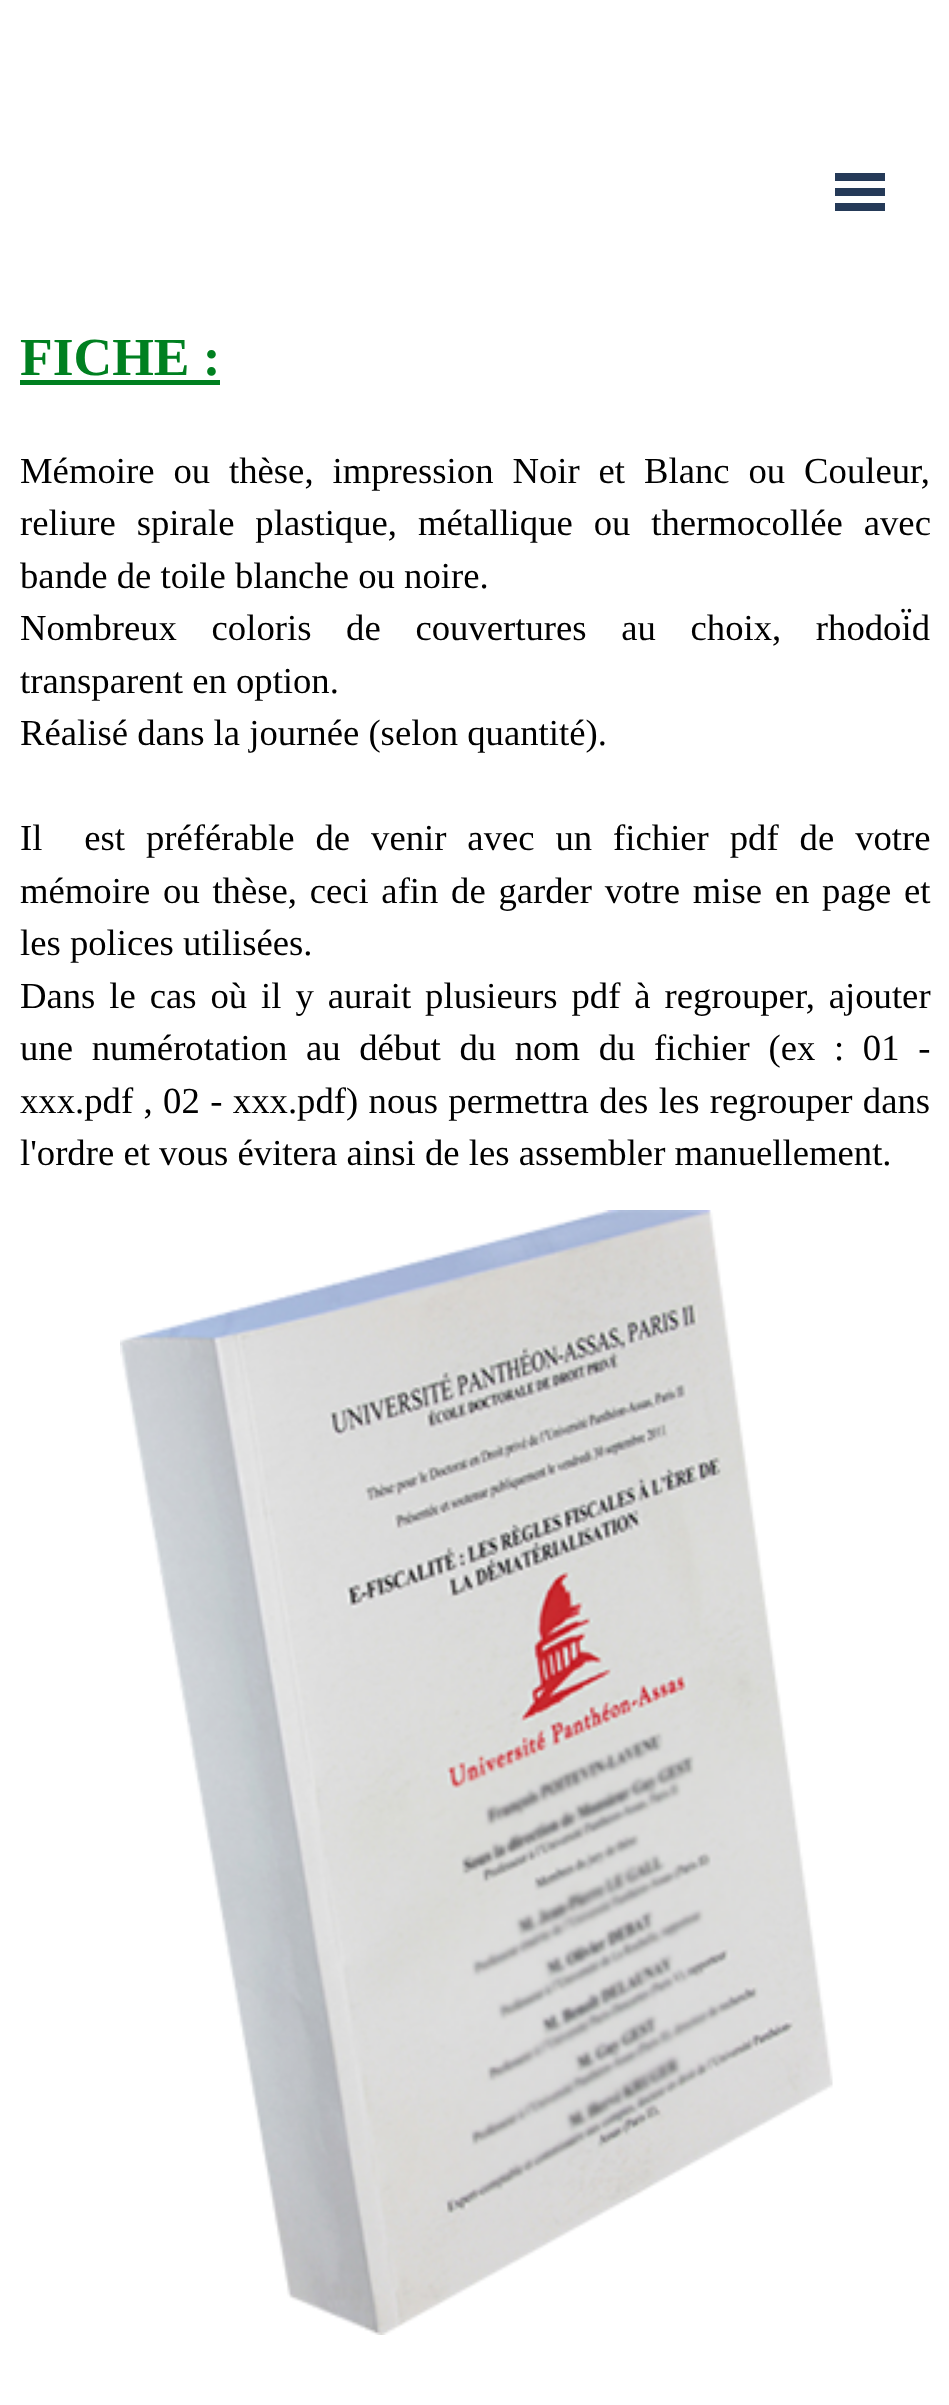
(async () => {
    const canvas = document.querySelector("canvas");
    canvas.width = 949;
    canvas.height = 2405;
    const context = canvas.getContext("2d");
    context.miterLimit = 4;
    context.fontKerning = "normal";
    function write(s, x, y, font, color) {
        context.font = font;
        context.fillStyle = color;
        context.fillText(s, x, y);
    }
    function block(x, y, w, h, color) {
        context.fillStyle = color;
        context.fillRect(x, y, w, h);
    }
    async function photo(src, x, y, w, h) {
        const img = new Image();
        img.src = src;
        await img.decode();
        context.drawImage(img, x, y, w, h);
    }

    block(0, 0, 949, 2405, "rgb(255, 255, 255)");
    block(835, 173, 50, 8, "rgb(37, 58, 88)");
    block(835, 188, 50, 8, "rgb(37, 58, 88)");
    block(835, 203, 50, 8, "rgb(37, 58, 88)");
    write("FICHE :", 20, 375, "bold 53.5px Liberation Serif", "rgb(0, 128, 32)");
    block(20, 380, 200, 5, "rgb(0, 128, 32)");
    context.wordSpacing = "9.75px";
    write("Mémoire ou thèse, impression Noir et Blanc ou Couleur,", 20, 483, "36.7px Liberation Serif", "rgb(0, 0, 0)");
    context.wordSpacing = "11.75px";
    write("reliure spirale plastique, métallique ou thermocollée avec", 20, 535, "36.7px Liberation Serif", "rgb(0, 0, 0)");
    context.wordSpacing = "0px";
    write("bande de toile blanche ou noire.", 20, 588, "36.7px Liberation Serif", "rgb(0, 0, 0)");
    context.wordSpacing = "25.5px";
    write("Nombreux coloris de couvertures au choix, rhodoïd", 20, 640, "36.7px Liberation Serif", "rgb(0, 0, 0)");
    context.wordSpacing = "0px";
    write("transparent en option.", 20, 693, "36.7px Liberation Serif", "rgb(0, 0, 0)");
    write("Réalisé dans la journée (selon quantité).", 20, 745, "36.7px Liberation Serif", "rgb(0, 0, 0)");
    context.wordSpacing = "11.75px";
    write("Il  est préférable de venir avec un fichier pdf de votre", 20, 850, "36.7px Liberation Serif", "rgb(0, 0, 0)");
    context.wordSpacing = "3.5px";
    write("mémoire ou thèse, ceci afin de garder votre mise en page et", 20, 903, "36.7px Liberation Serif", "rgb(0, 0, 0)");
    context.wordSpacing = "0px";
    write("les polices utilisées.", 20, 955, "36.7px Liberation Serif", "rgb(0, 0, 0)");
    context.wordSpacing = "4.75px";
    write("Dans le cas où il y aurait plusieurs pdf à regrouper, ajouter", 20, 1008, "36.7px Liberation Serif", "rgb(0, 0, 0)");
    context.wordSpacing = "9.5px";
    write("une numérotation au début du nom du fichier (ex : 01 -", 20, 1060, "36.7px Liberation Serif", "rgb(0, 0, 0)");
    context.wordSpacing = "1.25px";
    write("xxx.pdf , 02 - xxx.pdf) nous permettra des les regrouper dans", 20, 1113, "36.7px Liberation Serif", "rgb(0, 0, 0)");
    context.wordSpacing = "0px";
    write("l'ordre et vous évitera ainsi de les assembler manuellement.", 20, 1165, "36.7px Liberation Serif", "rgb(0, 0, 0)");
    await photo("media/1.png", 120, 1210, 713, 1125);
})();
